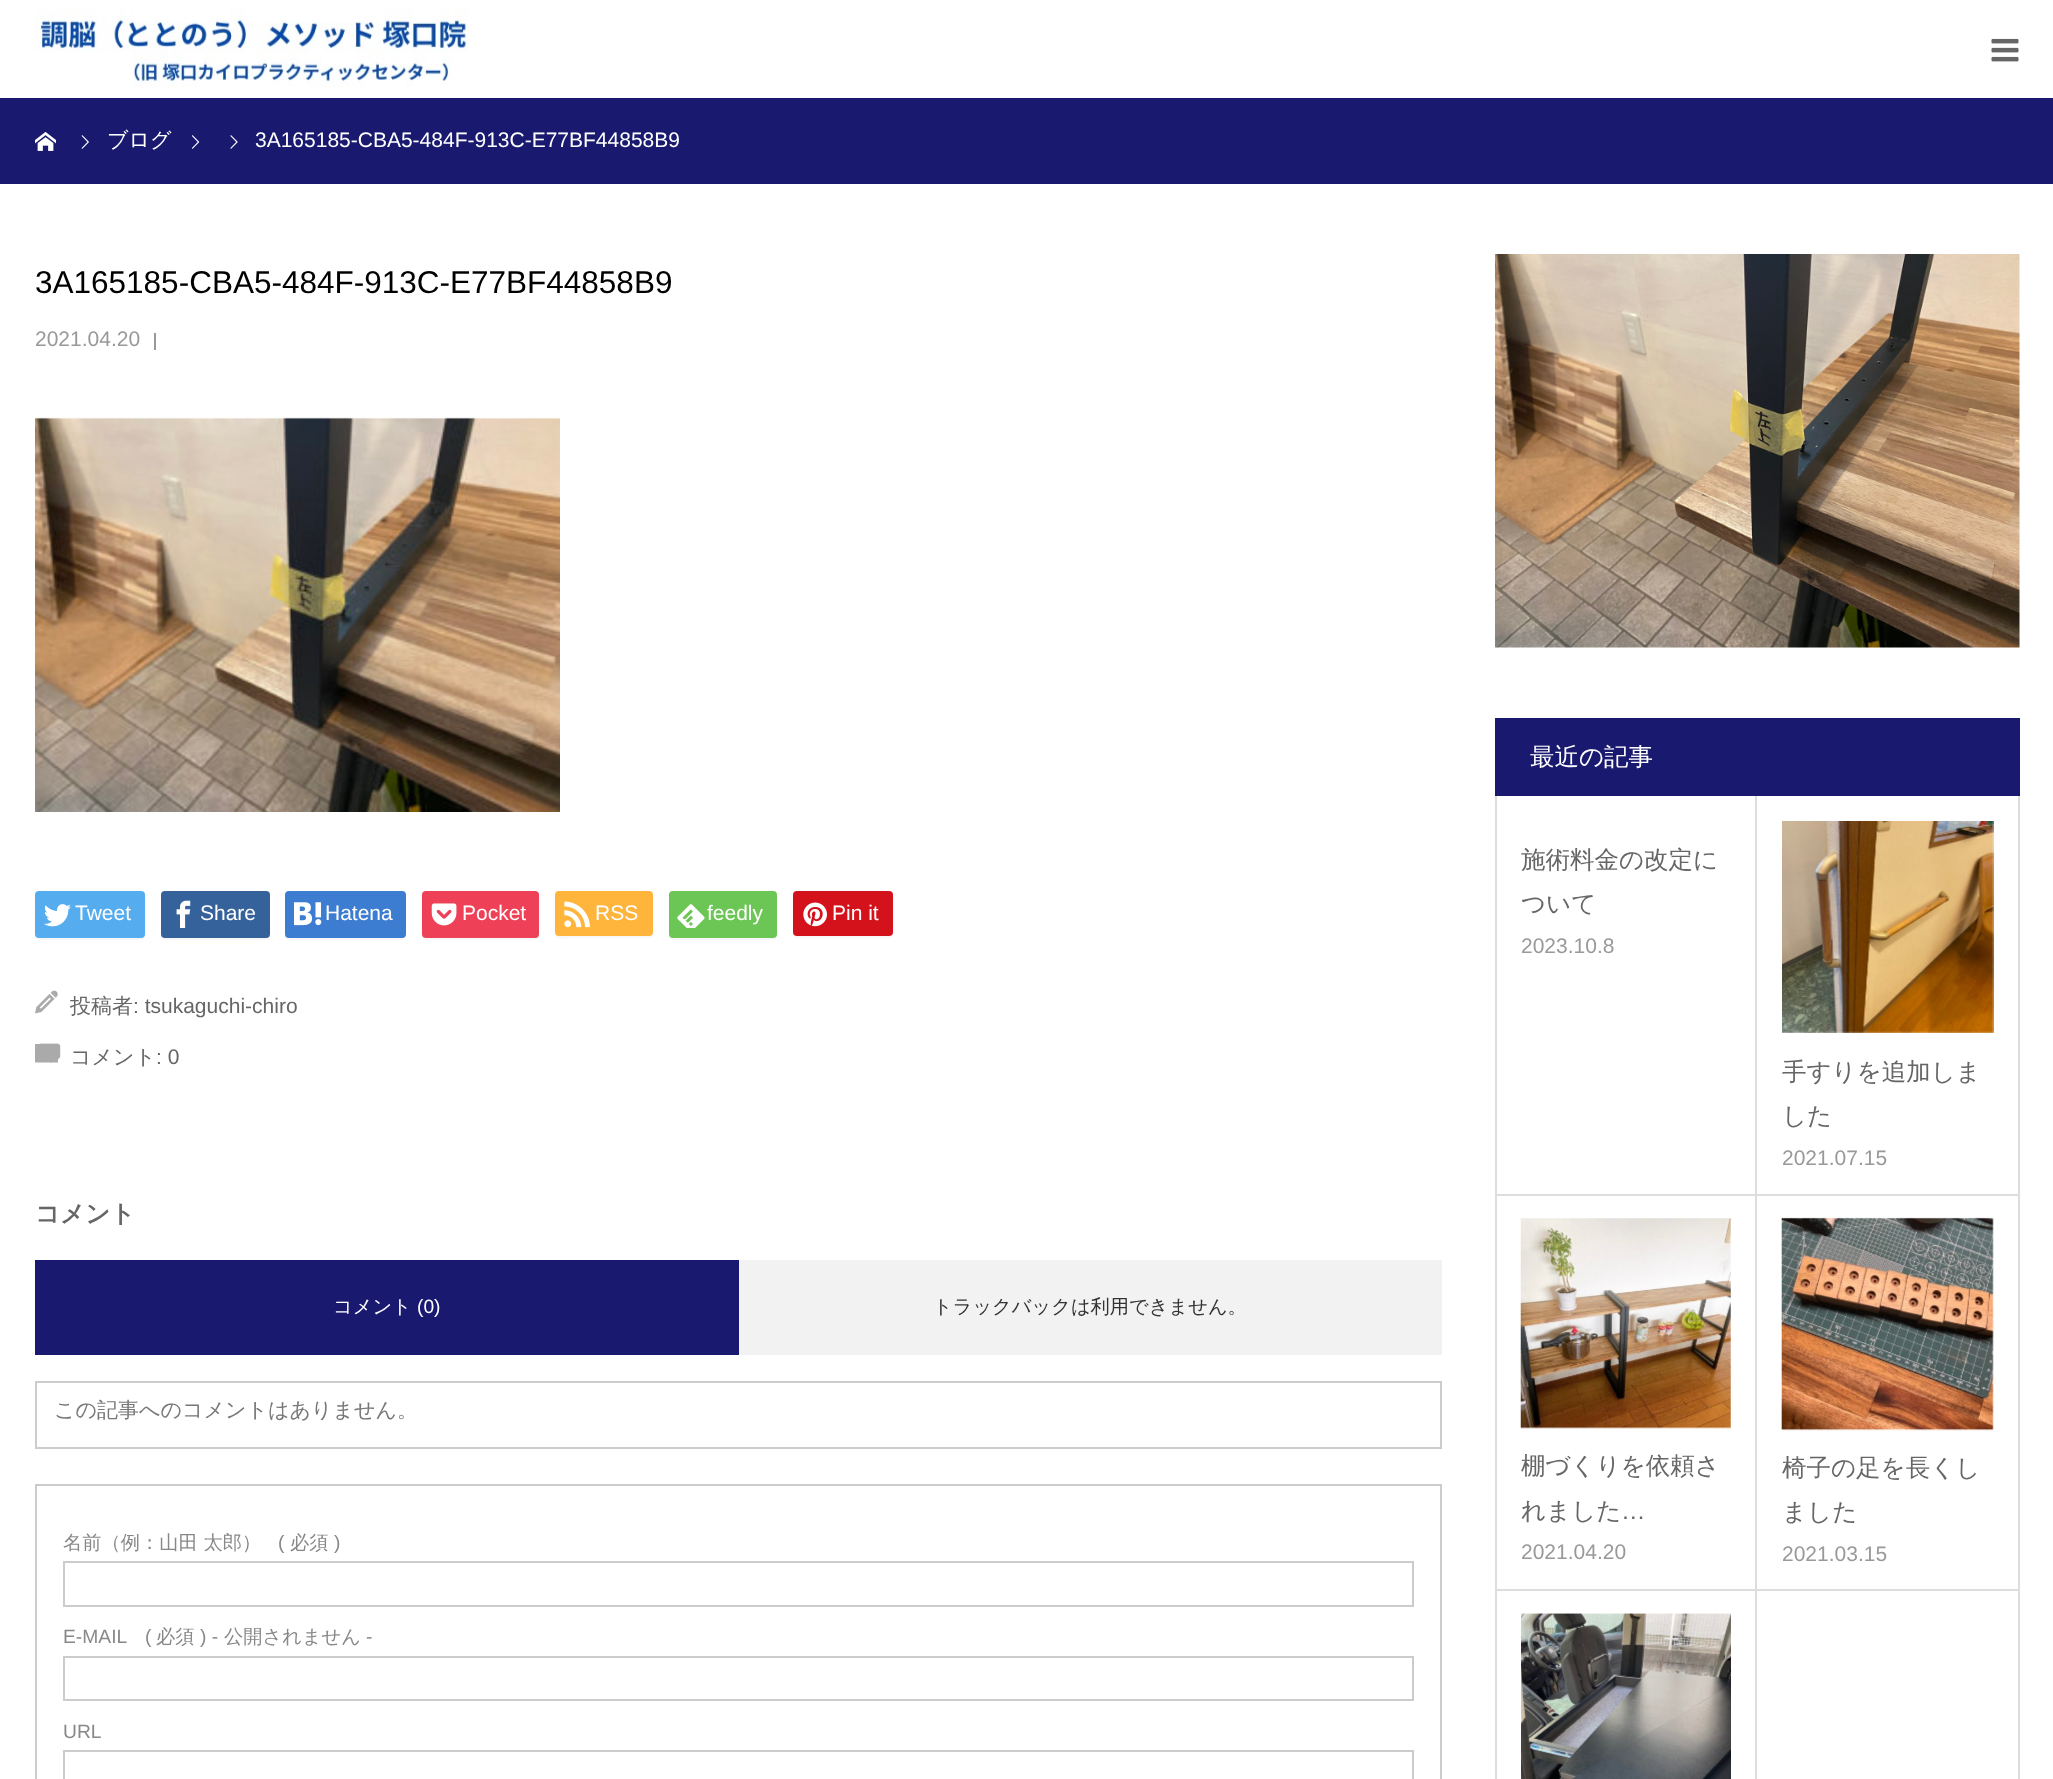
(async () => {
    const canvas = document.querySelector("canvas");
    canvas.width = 2053;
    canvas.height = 1779;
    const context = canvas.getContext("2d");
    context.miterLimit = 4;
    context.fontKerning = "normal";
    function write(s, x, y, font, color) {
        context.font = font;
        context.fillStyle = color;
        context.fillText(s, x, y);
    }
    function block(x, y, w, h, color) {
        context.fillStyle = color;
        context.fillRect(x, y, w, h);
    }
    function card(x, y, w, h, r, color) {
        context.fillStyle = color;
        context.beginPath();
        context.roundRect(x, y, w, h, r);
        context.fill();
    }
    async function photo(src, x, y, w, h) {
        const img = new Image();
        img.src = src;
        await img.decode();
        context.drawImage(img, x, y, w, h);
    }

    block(0, 0, 2053, 1779, "rgb(255, 255, 255)");
    await photo("media/1.png", 35, 9, 434, 78);
    await photo("media/2.png", 1991, 38, 28, 24);
    block(0, 98, 2053, 86, "rgb(25, 25, 112)");
    await photo("media/3.png", 35, 132, 21, 19);
    await photo("media/4.png", 81, 135, 8, 14);
    write("ブログ", 107, 147, "500 21px WenQuanYi Zen Hei", "rgb(255, 255, 255)");
    await photo("media/5.png", 191, 135, 9, 14);
    await photo("media/6.png", 230, 135, 8, 14);
    write("3A165185-CBA5-484F-913C-E77BF44858B9", 255, 147, "21px Liberation Sans", "rgb(255, 255, 255)");
    write("3A165185-CBA5-484F-913C-E77BF44858B9", 35, 293, "31.5px Liberation Sans", "rgb(0, 0, 0)");
    write("2021.04.20", 35, 346, "21px Liberation Sans", "rgb(153, 153, 153)");
    block(154, 333, 2, 17, "rgb(153, 153, 153)");
    await photo("media/7.png", 35, 417, 525, 395);
    context.fillStyle = "rgb(247, 247, 247)";
    context.beginPath();
    context.moveTo(35, 934);
    context.lineTo(35, 936);
    context.bezierCurveTo(35, 938, 37, 940, 39, 940);
    context.lineTo(141, 940);
    context.bezierCurveTo(143, 940, 145, 938, 145, 936);
    context.bezierCurveTo(144, 937, 143, 938, 142, 938);
    context.lineTo(38, 938);
    context.bezierCurveTo(37, 938, 35, 936, 35, 934);
    context.closePath();
    context.fill();
    card(35, 891, 110, 47, 4, "rgb(85, 172, 238)");
    await photo("media/8.png", 44, 904, 27, 23);
    write("Tweet", 75, 920, "21px Liberation Sans", "rgb(255, 255, 255)");
    context.fillStyle = "rgb(247, 247, 247)";
    context.beginPath();
    context.moveTo(161, 934);
    context.lineTo(161, 936);
    context.bezierCurveTo(161, 938, 163, 940, 165, 940);
    context.lineTo(266, 940);
    context.bezierCurveTo(268, 940, 270, 938, 270, 936);
    context.lineTo(270, 897);
    context.lineTo(270, 895);
    context.lineTo(270, 934);
    context.bezierCurveTo(270, 936, 268, 938, 266, 938);
    context.lineTo(164, 938);
    context.bezierCurveTo(163, 938, 161, 936, 161, 934);
    context.closePath();
    context.fill();
    card(161, 891, 109, 47, 4, "rgb(53, 98, 154)");
    await photo("media/9.png", 176, 900, 15, 28);
    write("Share", 200, 920, "21px Liberation Sans", "rgb(255, 255, 255)");
    context.fillStyle = "rgb(247, 247, 247)";
    context.beginPath();
    context.moveTo(285, 896);
    context.lineTo(285, 923);
    context.bezierCurveTo(285, 945, 283, 940, 308, 940);
    context.lineTo(402, 940);
    context.bezierCurveTo(405, 940, 406, 937, 406, 934);
    context.bezierCurveTo(406, 936, 404, 938, 402, 938);
    context.lineTo(289, 938);
    context.bezierCurveTo(287, 938, 285, 936, 285, 934);
    context.closePath();
    context.fill();
    card(285, 891, 121, 47, 4, "rgb(60, 125, 209)");
    await photo("media/10.png", 294, 902, 28, 24);
    write("Hatena", 325, 920, "21px Liberation Sans", "rgb(255, 255, 255)");
    context.fillStyle = "rgb(247, 247, 247)";
    context.beginPath();
    context.moveTo(422, 936);
    context.bezierCurveTo(422, 938, 424, 940, 426, 940);
    context.lineTo(535, 940);
    context.bezierCurveTo(537, 940, 539, 938, 539, 936);
    context.lineTo(539, 934);
    context.bezierCurveTo(539, 936, 537, 938, 536, 938);
    context.lineTo(425, 938);
    context.bezierCurveTo(424, 938, 423, 937, 422, 936);
    context.closePath();
    context.fill();
    card(422, 891, 117, 47, 4, "rgb(238, 64, 86)");
    await photo("media/11.png", 431, 903, 26, 23);
    write("Pocket", 462, 920, "21px Liberation Sans", "rgb(255, 255, 255)");
    context.fillStyle = "rgb(247, 247, 247)";
    context.beginPath();
    context.moveTo(555, 934);
    context.bezierCurveTo(555, 941, 567, 938, 574, 938);
    context.lineTo(634, 938);
    context.bezierCurveTo(655, 938, 653, 941, 653, 922);
    context.lineTo(653, 896);
    context.lineTo(653, 933);
    context.bezierCurveTo(653, 935, 651, 936, 649, 936);
    context.lineTo(558, 936);
    context.bezierCurveTo(557, 936, 556, 935, 555, 934);
    context.closePath();
    context.fill();
    card(555, 891, 98, 45, 4, "rgb(255, 181, 60)");
    await photo("media/12.png", 564, 901, 26, 27);
    write("RSS", 595, 920, "21px Liberation Sans", "rgb(255, 255, 255)");
    context.fillStyle = "rgb(247, 247, 247)";
    context.beginPath();
    context.moveTo(669, 936);
    context.bezierCurveTo(669, 938, 671, 940, 673, 940);
    context.lineTo(773, 940);
    context.bezierCurveTo(775, 940, 777, 938, 777, 936);
    context.lineTo(777, 934);
    context.bezierCurveTo(777, 936, 775, 938, 774, 938);
    context.lineTo(672, 938);
    context.bezierCurveTo(671, 938, 670, 937, 669, 936);
    context.closePath();
    context.fill();
    card(669, 891, 108, 47, 4, "rgb(108, 198, 85)");
    await photo("media/13.png", 677, 904, 28, 24);
    write("feedly", 707, 920, "21px Liberation Sans", "rgb(255, 255, 255)");
    context.fillStyle = "rgb(247, 247, 247)";
    context.beginPath();
    context.moveTo(793, 934);
    context.bezierCurveTo(793, 936, 795, 938, 797, 938);
    context.lineTo(889, 938);
    context.bezierCurveTo(891, 938, 893, 936, 893, 934);
    context.lineTo(893, 897);
    context.lineTo(892, 895);
    context.lineTo(892, 933);
    context.bezierCurveTo(892, 935, 891, 936, 889, 936);
    context.lineTo(796, 936);
    context.bezierCurveTo(795, 936, 794, 935, 793, 934);
    context.closePath();
    context.fill();
    card(793, 891, 100, 45, 4, "rgb(212, 18, 28)");
    await photo("media/14.png", 803, 902, 24, 25);
    write("Pin it", 832, 920, "21px Liberation Sans", "rgb(255, 255, 255)");
    await photo("media/15.png", 35, 990, 23, 24);
    write("投稿者", 70, 1013, "500 21px WenQuanYi Zen Hei", "rgb(102, 102, 102)");
    write(": tsukaguchi-chiro", 133, 1013, "21px Liberation Sans", "rgb(102, 102, 102)");
    context.fillStyle = "rgb(170, 170, 170)";
    context.beginPath();
    context.moveTo(45, 1044);
    context.lineTo(48, 1047);
    context.lineTo(58, 1047);
    context.lineTo(58, 1062.5);
    context.lineTo(35, 1062.5);
    context.lineTo(35, 1044);
    context.closePath();
    context.fill();
    await photo("media/16.png", 39, 1043, 22, 20);
    write("コメント", 70, 1064, "500 21px WenQuanYi Zen Hei", "rgb(102, 102, 102)");
    write(": 0", 156, 1064, "21px Liberation Sans", "rgb(102, 102, 102)");
    write("コメント", 35, 1222, "bold 24.5px WenQuanYi Zen Hei", "rgb(102, 102, 102)");
    block(35, 1260, 704, 95, "rgb(25, 25, 112)");
    write("コメント", 333, 1313, "500 19.25px WenQuanYi Zen Hei", "rgb(255, 255, 255)");
    write("(0)", 417, 1313, "19.25px Liberation Sans", "rgb(255, 255, 255)");
    block(739, 1260, 703, 95, "rgb(242, 242, 242)");
    write("トラックバックは利用できません。", 933, 1313, "500 19.25px WenQuanYi Zen Hei", "rgb(51, 51, 51)");
    context.strokeStyle = "rgb(204, 204, 204)";
    context.lineWidth = 2;
    context.strokeRect(36, 1382, 1405, 66);
    write("この記事へのコメントはありません。", 54, 1417, "500 21px WenQuanYi Zen Hei", "rgb(119, 119, 119)");
    context.strokeRect(36, 1485, 1405, 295);
    write("名前（例：山田 太郎）", 63, 1549, "500 19.25px WenQuanYi Zen Hei", "rgb(136, 136, 136)");
    write("(", 278, 1549, "19.25px Liberation Sans", "rgb(136, 136, 136)");
    write("必須", 290, 1549, "500 19.25px WenQuanYi Zen Hei", "rgb(136, 136, 136)");
    write(")", 334, 1549, "19.25px Liberation Sans", "rgb(136, 136, 136)");
    context.strokeRect(64, 1562, 1349, 44);
    write("E-MAIL", 63, 1643, "19.25px Liberation Sans", "rgb(136, 136, 136)");
    write("(", 145, 1643, "19.25px Liberation Sans", "rgb(136, 136, 136)");
    write("必須", 156, 1643, "500 19.25px WenQuanYi Zen Hei", "rgb(136, 136, 136)");
    write(") -", 200, 1643, "19.25px Liberation Sans", "rgb(136, 136, 136)");
    write("公開されません", 224, 1643, "500 19.25px WenQuanYi Zen Hei", "rgb(136, 136, 136)");
    write("-", 366, 1643, "19.25px Liberation Sans", "rgb(136, 136, 136)");
    context.strokeRect(64, 1657, 1349, 43);
    write("URL", 63, 1738, "19.25px Liberation Sans", "rgb(136, 136, 136)");
    context.strokeRect(64, 1751, 1349, 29);
    await photo("media/17.png", 1495, 254, 525, 394);
    block(1495, 718, 525, 78, "rgb(25, 25, 112)");
    write("最近の記事", 1530, 765, "500 24.5px WenQuanYi Zen Hei", "rgb(255, 255, 255)");
    block(2018, 796, 2, 983, "rgb(221, 221, 221)");
    block(1495, 796, 2, 983, "rgb(221, 221, 221)");
    block(1755, 796, 2, 399, "rgb(221, 221, 221)");
    block(1496, 1194, 522, 2, "rgb(221, 221, 221)");
    write("施術料金の改定に", 1521, 868, "500 24.5px WenQuanYi Zen Hei", "rgb(102, 102, 102)");
    write("ついて", 1521, 912, "500 24.5px WenQuanYi Zen Hei", "rgb(102, 102, 102)");
    write("2023.10.8", 1521, 953, "21px Liberation Sans", "rgb(153, 153, 153)");
    await photo("media/18.png", 1782, 821, 212, 212);
    write("手すりを追加しま", 1782, 1080, "500 24.5px WenQuanYi Zen Hei", "rgb(102, 102, 102)");
    write("した", 1782, 1124, "500 24.5px WenQuanYi Zen Hei", "rgb(102, 102, 102)");
    write("2021.07.15", 1782, 1165, "21px Liberation Sans", "rgb(153, 153, 153)");
    block(1755, 1194, 2, 397, "rgb(221, 221, 221)");
    block(1496, 1589, 522, 2, "rgb(221, 221, 221)");
    await photo("media/19.png", 1520, 1218, 211, 211);
    write("棚づくりを依頼さ", 1521, 1474, "500 24.5px WenQuanYi Zen Hei", "rgb(102, 102, 102)");
    write("れました", 1521, 1519, "500 24.5px WenQuanYi Zen Hei", "rgb(102, 102, 102)");
    write("…", 1621, 1519, "24.5px Liberation Sans", "rgb(102, 102, 102)");
    write("2021.04.20", 1521, 1559, "21px Liberation Sans", "rgb(153, 153, 153)");
    await photo("media/20.png", 1781, 1217, 213, 214);
    write("椅子の足を長くし", 1782, 1476, "500 24.5px WenQuanYi Zen Hei", "rgb(102, 102, 102)");
    write("ました", 1782, 1520, "500 24.5px WenQuanYi Zen Hei", "rgb(102, 102, 102)");
    write("2021.03.15", 1782, 1561, "21px Liberation Sans", "rgb(153, 153, 153)");
    block(1755, 1589, 2, 190, "rgb(221, 221, 221)");
    await photo("media/21.png", 1521, 1613, 210, 166);
})();
